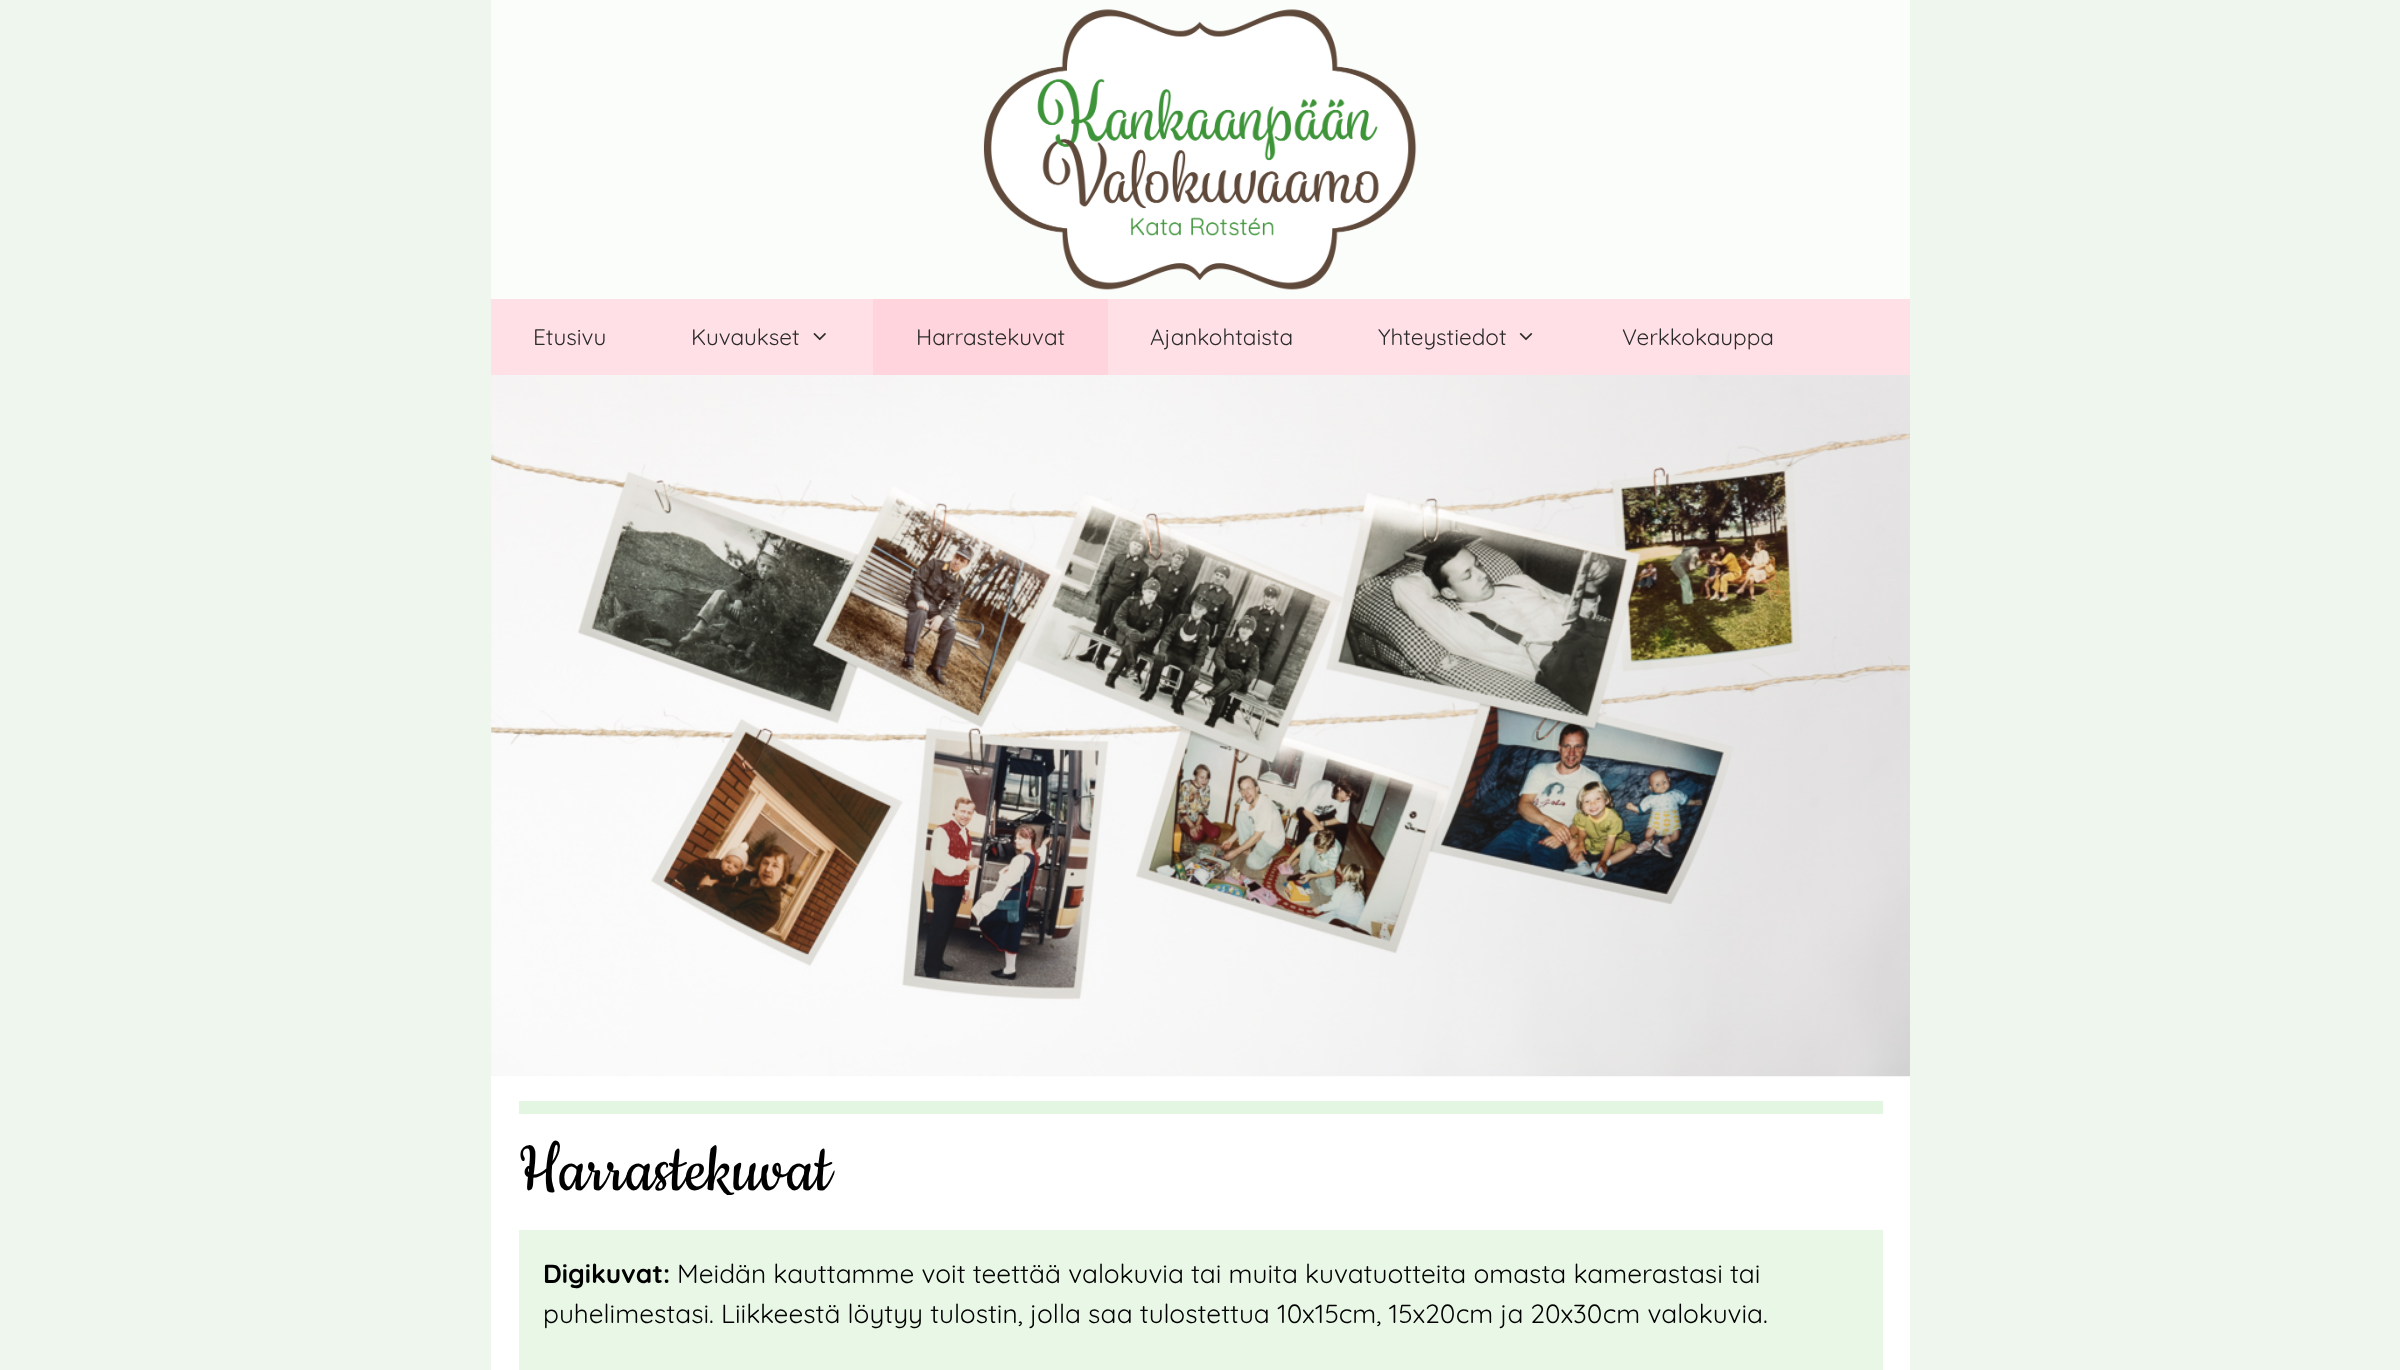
(async () => {
    const canvas = document.querySelector("canvas");
    canvas.width = 2400;
    canvas.height = 1370;
    const context = canvas.getContext("2d");
    context.miterLimit = 4;
    context.fontKerning = "normal";
    function write(s, x, y, font, color) {
        context.font = font;
        context.fillStyle = color;
        context.fillText(s, x, y);
    }
    function block(x, y, w, h, color) {
        context.fillStyle = color;
        context.fillRect(x, y, w, h);
    }
    async function photo(src, x, y, w, h) {
        const img = new Image();
        img.src = src;
        await img.decode();
        context.drawImage(img, x, y, w, h);
    }

    block(0, 0, 2400, 1370, "rgb(238, 246, 238)");
    block(491, 0, 1419, 299, "rgb(251, 253, 251)");
    await photo("media/1.png", 983, 9, 434, 281);
    block(491, 299, 1419, 76, "rgb(255, 224, 230)");
    write("Etusivu", 533, 345, "22.5px Quicksand", "rgb(43, 43, 43)");
    write("Kuvaukset", 691, 345, "22.5px Quicksand", "rgb(43, 43, 43)");
    await photo("media/2.png", 813, 333, 13, 8);
    block(873, 299, 235, 76, "rgb(255, 212, 221)");
    write("Harrastekuvat", 916, 345, "22.5px Quicksand", "rgb(43, 43, 43)");
    write("Ajankohtaista", 1150, 345, "22.5px Quicksand", "rgb(43, 43, 43)");
    write("Yhteystiedot", 1378, 345, "22.5px Quicksand", "rgb(43, 43, 43)");
    await photo("media/3.png", 1519, 333, 14, 8);
    write("Verkkokauppa", 1622, 345, "22.5px Quicksand", "rgb(43, 43, 43)");
    block(491, 1076, 1419, 294, "rgb(255, 255, 255)");
    await photo("media/4.png", 491, 375, 1419, 702);
    block(519, 1101, 1364, 13, "rgb(227, 246, 225)");
    write("Harrastekuvat", 518, 1190, "75px Cookie", "rgb(0, 0, 0)");
    block(519, 1230, 1364, 140, "rgb(232, 247, 230)");
    write("Digikuvat:", 543, 1283, "bold 26.25px Quicksand", "rgb(0, 0, 0)");
    write("Meidän kauttamme voit teettää valokuvia tai muita kuvatuotteita omasta kamerastasi tai", 677, 1283, "26.25px Quicksand", "rgb(0, 0, 0)");
    write("puhelimestasi. Liikkeestä löytyy tulostin, jolla saa tulostettua 10x15cm, 15x20cm ja 20x30cm valokuvia.", 543, 1323, "26.25px Quicksand", "rgb(0, 0, 0)");
})();
